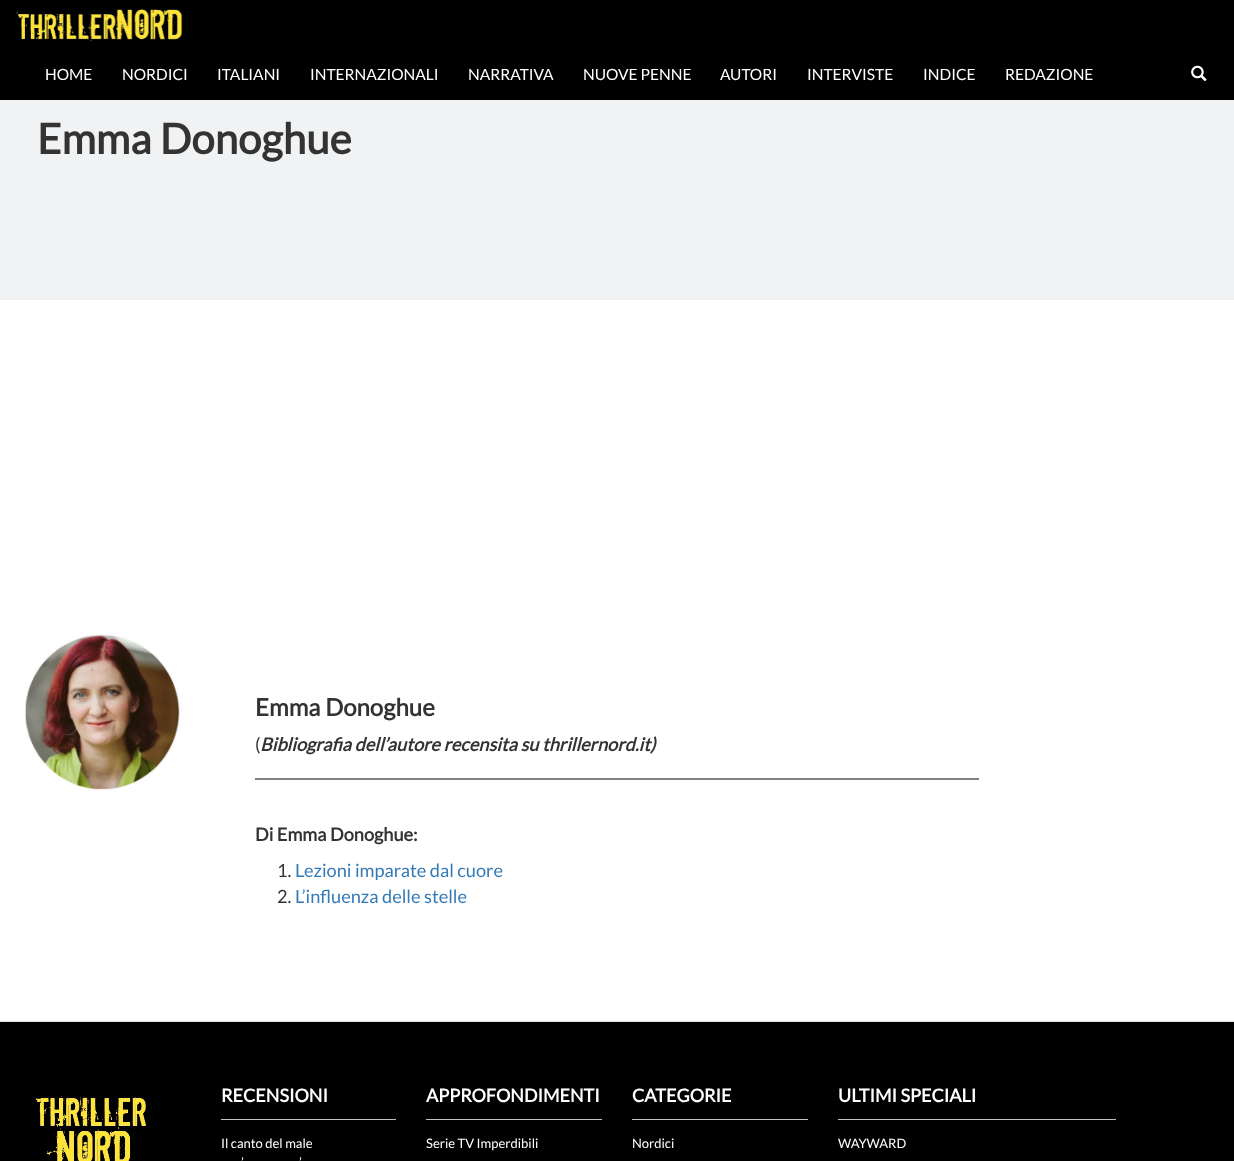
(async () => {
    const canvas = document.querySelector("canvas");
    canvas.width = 1234;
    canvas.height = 1161;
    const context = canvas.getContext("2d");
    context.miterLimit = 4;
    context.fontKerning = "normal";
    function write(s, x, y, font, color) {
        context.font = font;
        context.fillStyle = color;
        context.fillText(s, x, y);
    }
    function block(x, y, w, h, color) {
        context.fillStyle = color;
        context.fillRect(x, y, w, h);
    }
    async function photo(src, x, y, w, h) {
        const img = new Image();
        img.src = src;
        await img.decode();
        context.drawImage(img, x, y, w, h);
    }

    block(0, 0, 1234, 1161, "rgb(255, 255, 255)");
    block(0, 0, 1234, 100, "rgb(0, 0, 0)");
    await photo("media/1.png", 16, 9, 167, 33);
    write("HOME", 45, 80, "15.5px Lato", "rgb(255, 255, 255)");
    write("NORDICI", 122, 80, "15.5px Lato", "rgb(255, 255, 255)");
    write("ITALIANI", 217, 80, "15.5px Lato", "rgb(255, 255, 255)");
    write("INTERNAZIONALI", 310, 80, "15.5px Lato", "rgb(255, 255, 255)");
    write("NARRATIVA", 468, 80, "15.5px Lato", "rgb(255, 255, 255)");
    write("NUOVE PENNE", 583, 80, "15.5px Lato", "rgb(255, 255, 255)");
    write("AUTORI", 720, 80, "15.5px Lato", "rgb(255, 255, 255)");
    write("INTERVISTE", 807, 80, "15.5px Lato", "rgb(255, 255, 255)");
    write("INDICE", 923, 80, "15.5px Lato", "rgb(255, 255, 255)");
    write("REDAZIONE", 1005, 80, "15.5px Lato", "rgb(255, 255, 255)");
    await photo("media/2.png", 1191, 65, 16, 16);
    block(0, 100, 1234, 200, "rgb(240, 242, 243)");
    write("Emma Donoghue", 37, 154, "bold 42px Lato", "rgb(51, 51, 51)");
    await photo("media/3.png", 25, 634, 156, 157);
    write("Emma Donoghue", 255, 716, "bold 24px Lato", "rgb(51, 51, 51)");
    write("(", 255, 751, "18.2px Lato", "rgb(51, 51, 51)");
    write("Bibliografia dell’autore recensita su thrillernord.it)", 260, 751, "italic bold 18.2px Lato", "rgb(51, 51, 51)");
    block(255, 778, 724, 2, "rgb(128, 128, 128)");
    write("Di Emma Donoghue:", 255, 841, "bold 18.2px Lato", "rgb(51, 51, 51)");
    write("1.", 277, 877, "18.2px Lato", "rgb(51, 51, 51)");
    write("Lezioni imparate dal cuore", 295, 877, "18.2px Lato", "rgb(51, 122, 183)");
    write("2.", 277, 903, "18.2px Lato", "rgb(51, 51, 51)");
    write("L’influenza delle stelle", 295, 903, "18.2px Lato", "rgb(51, 122, 183)");
    block(0, 1022, 1234, 139, "rgb(0, 0, 0)");
    block(0, 1021, 1234, 1, "rgb(221, 221, 221)");
    await photo("media/4.png", 35, 1095, 118, 66);
    block(221, 1119, 175, 1, "rgb(186, 193, 200)");
    write("RECENSIONI", 221, 1102, "bold 18px Lato", "rgb(255, 255, 255)");
    write("Il canto del male", 221, 1148, "13px Lato", "rgb(255, 255, 255)");
    write("’", 241, 1167, "13px Lato", "rgb(255, 255, 255)");
    write("’", 299, 1167, "13px Lato", "rgb(255, 255, 255)");
    block(426, 1119, 176, 1, "rgb(186, 193, 200)");
    write("APPROFONDIMENTI", 426, 1102, "bold 18px Lato", "rgb(255, 255, 255)");
    write("Serie TV Imperdibili", 426, 1148, "13px Lato", "rgb(255, 255, 255)");
    block(632, 1119, 176, 1, "rgb(186, 193, 200)");
    write("CATEGORIE", 632, 1102, "bold 18px Lato", "rgb(255, 255, 255)");
    write("Nordici", 632, 1148, "13px Lato", "rgb(255, 255, 255)");
    block(838, 1119, 278, 1, "rgb(186, 193, 200)");
    write("ULTIMI SPECIALI", 838, 1102, "bold 18px Lato", "rgb(255, 255, 255)");
    write("WAYWARD", 838, 1148, "13px Lato", "rgb(255, 255, 255)");
})();
